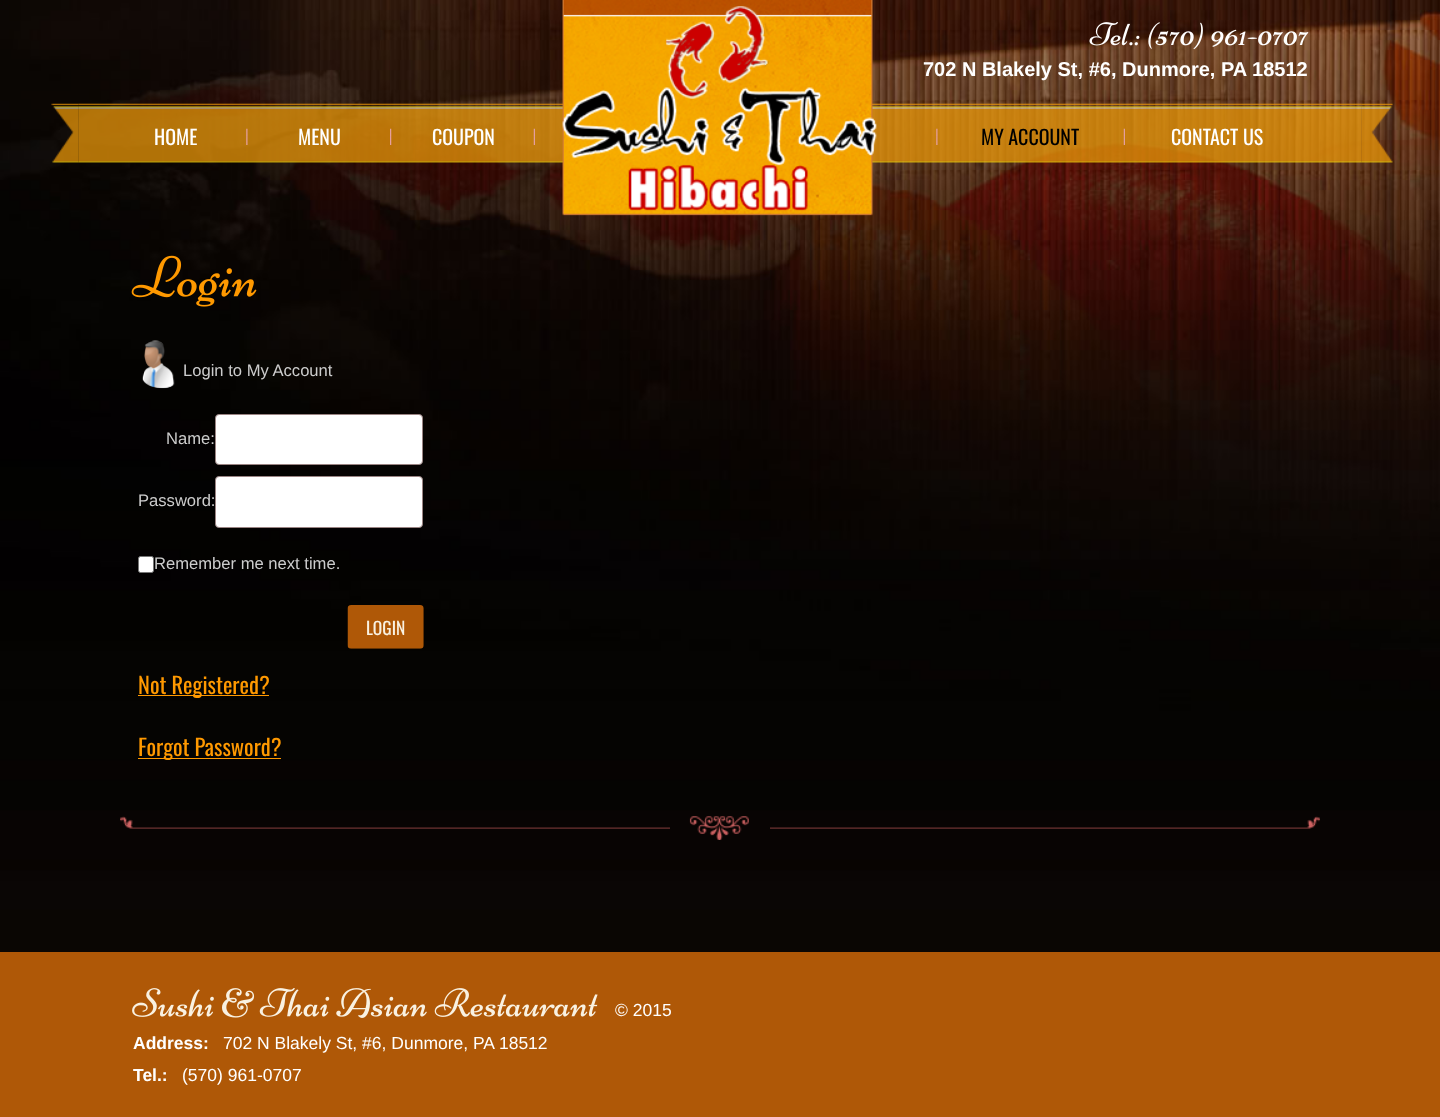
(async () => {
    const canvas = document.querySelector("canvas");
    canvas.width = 1440;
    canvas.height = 1117;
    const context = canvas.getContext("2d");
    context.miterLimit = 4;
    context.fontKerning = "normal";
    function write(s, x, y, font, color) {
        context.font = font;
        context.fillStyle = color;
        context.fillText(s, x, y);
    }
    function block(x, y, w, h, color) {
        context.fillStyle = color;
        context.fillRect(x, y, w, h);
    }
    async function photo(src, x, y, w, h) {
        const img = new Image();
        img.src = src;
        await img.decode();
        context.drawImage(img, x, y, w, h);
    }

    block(0, 0, 1440, 1117, "rgb(255, 255, 255)");
    await photo("media/1.png", 0, 0, 1440, 952);
    await photo("media/2.png", 1089, 22, 220, 28);
    write("702 N Blakely St, #6, Dunmore, PA 18512", 923, 76, "bold 20px Liberation Sans", "rgb(255, 255, 255)");
    await photo("media/3.png", 78, 103, 485, 60);
    await photo("media/4.png", 51, 103, 28, 60);
    await photo("media/5.png", 246, 128, 2, 17);
    write("HOME", 154, 145, "20px Oswald", "rgb(255, 255, 255)");
    await photo("media/6.png", 390, 128, 2, 17);
    write("MENU", 298, 145, "20px Oswald", "rgb(255, 255, 255)");
    await photo("media/7.png", 533, 128, 2, 17);
    write("COUPON", 432, 145, "20px Oswald", "rgb(255, 255, 255)");
    await photo("media/9.png", 872, 103, 490, 60);
    await photo("media/8.png", 562, 0, 315, 216);
    await photo("media/10.png", 936, 128, 2, 17);
    write("MY ACCOUNT", 981, 145, "20px Oswald", "rgb(0, 0, 0)");
    await photo("media/11.png", 1123, 128, 2, 17);
    write("CONTACT US", 1171, 145, "20px Oswald", "rgb(255, 255, 255)");
    await photo("media/12.png", 1361, 103, 32, 60);
    await photo("media/13.png", 131, 255, 126, 52);
    await photo("media/14.png", 142, 340, 33, 49);
    write("Login to My Account", 183, 376, "16.6px Liberation Sans", "rgb(204, 204, 204)");
    write("Name:", 166, 444, "16.6px Liberation Sans", "rgb(204, 204, 204)");
    context.fillStyle = "rgb(255, 255, 255)";
    context.beginPath();
    context.roundRect(215.5, 414.5, 207, 50, 3.5);
    context.fill();
    context.strokeStyle = "rgb(153, 131, 130)";
    context.stroke();
    write("Password:", 138, 506, "16.6px Liberation Sans", "rgb(204, 204, 204)");
    context.fillStyle = "rgb(255, 255, 255)";
    context.beginPath();
    context.roundRect(215.5, 476.5, 207, 51, 3.5);
    context.fill();
    context.stroke();
    context.beginPath();
    context.roundRect(138.5, 556.5, 15, 16, 2);
    context.fill();
    context.strokeStyle = "rgb(118, 118, 118)";
    context.stroke();
    write("Remember me next time.", 154, 569, "16.6px Liberation Sans", "rgb(204, 204, 204)");
    await photo("media/15.png", 347, 605, 77, 44);
    write("LOGIN", 366, 635, "17.5px Oswald", "rgb(249, 241, 225)");
    block(138, 695, 131, 1, "rgb(255, 153, 0)");
    write("Not Registered?", 138, 694, "22.5px Oswald", "rgb(255, 153, 0)");
    block(138, 758, 143, 1, "rgb(255, 153, 0)");
    write("Forgot Password?", 138, 756, "22.5px Oswald", "rgb(255, 153, 0)");
    await photo("media/16.png", 120, 816, 550, 13);
    await photo("media/17.png", 689, 816, 60, 24);
    await photo("media/18.png", 770, 816, 550, 13);
    block(0, 952, 1440, 165, "rgb(175, 88, 7)");
    await photo("media/19.png", 132, 988, 466, 30);
    write("© 2015", 615, 1016, "17.5px Liberation Sans", "rgb(255, 255, 255)");
    write("Address:", 133, 1049, "bold 17.5px Liberation Sans", "rgb(255, 255, 255)");
    write("702 N Blakely St, #6, Dunmore, PA 18512", 223, 1049, "17.5px Liberation Sans", "rgb(255, 255, 255)");
    write("Tel.:", 133, 1081, "bold 17.5px Liberation Sans", "rgb(255, 255, 255)");
    write("(570) 961-0707", 182, 1081, "17.5px Liberation Sans", "rgb(255, 255, 255)");
})();
